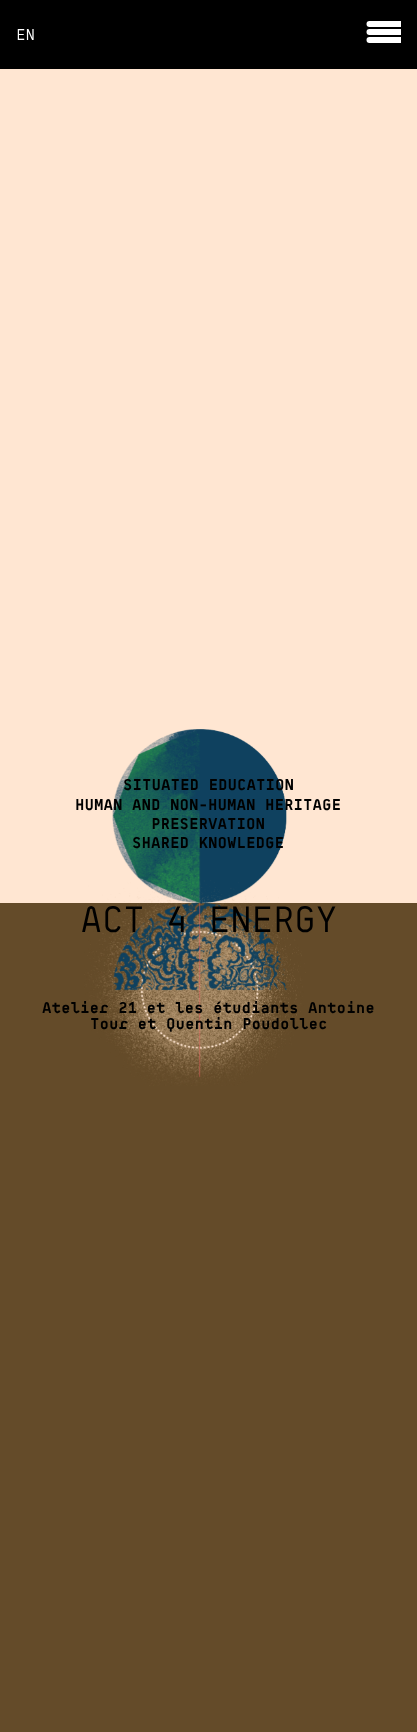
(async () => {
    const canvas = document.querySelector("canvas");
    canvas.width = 417;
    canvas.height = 1732;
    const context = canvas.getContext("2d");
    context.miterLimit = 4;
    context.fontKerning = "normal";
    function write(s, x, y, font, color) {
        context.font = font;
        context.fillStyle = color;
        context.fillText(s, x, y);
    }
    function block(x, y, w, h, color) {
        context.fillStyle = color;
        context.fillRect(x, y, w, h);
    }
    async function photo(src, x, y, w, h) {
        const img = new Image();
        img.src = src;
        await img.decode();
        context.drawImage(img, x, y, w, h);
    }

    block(0, 0, 417, 1732, "rgb(0, 0, 0)");
    write("EN", 16, 40, "16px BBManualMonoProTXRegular", "rgb(255, 255, 255)");
    context.save();
    context.beginPath();
    context.rect(362, 16, 39, 32);
    context.clip();
    context.beginPath();
    context.moveTo(369.5, 24);
    context.lineTo(404.5, 24);
    context.moveTo(369.5, 32);
    context.lineTo(404.5, 32);
    context.moveTo(369.5, 40);
    context.lineTo(404.5, 40);
    context.strokeStyle = "rgb(255, 255, 255)";
    context.lineWidth = 6;
    context.lineCap = "round";
    context.lineJoin = "round";
    context.stroke();
    context.restore();
    block(0, 69, 417, 834, "rgb(255, 230, 210)");
    block(0, 903, 417, 829, "rgb(100, 75, 41)");
    await photo("media/1.png", 84, 729, 222, 357);
    write("SITUATED EDUCATION", 123, 790, "bold 16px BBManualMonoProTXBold", "rgb(0, 0, 0)");
    write("HUMAN AND NON-HUMAN HERITAGE", 75, 810, "bold 16px BBManualMonoProTXBold", "rgb(0, 0, 0)");
    write("PRESERVATION", 151, 829, "bold 16px BBManualMonoProTXBold", "rgb(0, 0, 0)");
    write("SHARED KNOWLEDGE", 132, 848, "bold 16px BBManualMonoProTXBold", "rgb(0, 0, 0)");
    write("ACT 4 ENERGY", 80, 932, "bold 36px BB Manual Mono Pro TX", "rgb(0, 0, 0)");
    write("Atelier 21 et les étudiants Antoine", 42, 1013, "bold 16px BBManualMonoProTXBold", "rgb(0, 0, 0)");
    write("Tour et Quentin Poudollec", 90, 1029, "bold 16px BBManualMonoProTXBold", "rgb(0, 0, 0)");
})();
